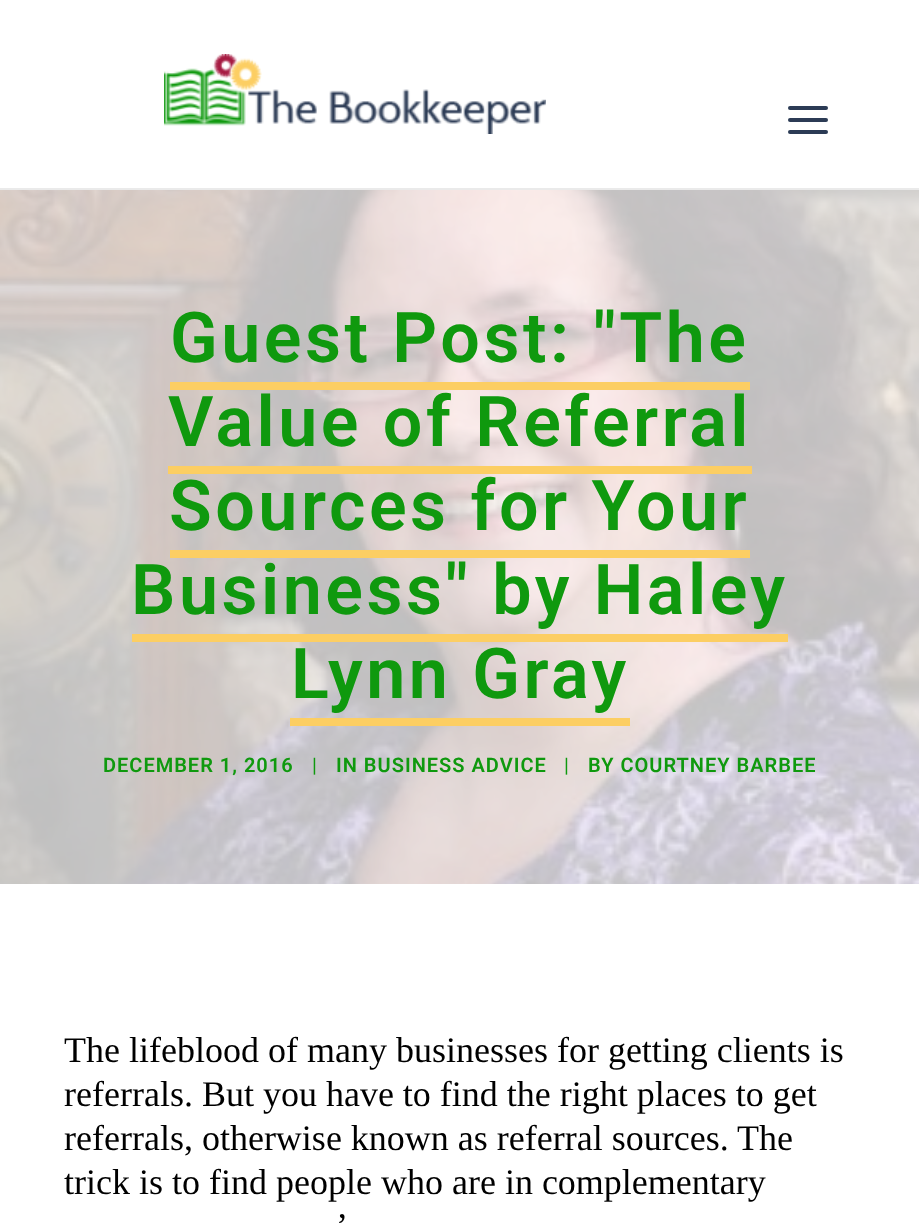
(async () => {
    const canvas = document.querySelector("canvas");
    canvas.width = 919;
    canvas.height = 1223;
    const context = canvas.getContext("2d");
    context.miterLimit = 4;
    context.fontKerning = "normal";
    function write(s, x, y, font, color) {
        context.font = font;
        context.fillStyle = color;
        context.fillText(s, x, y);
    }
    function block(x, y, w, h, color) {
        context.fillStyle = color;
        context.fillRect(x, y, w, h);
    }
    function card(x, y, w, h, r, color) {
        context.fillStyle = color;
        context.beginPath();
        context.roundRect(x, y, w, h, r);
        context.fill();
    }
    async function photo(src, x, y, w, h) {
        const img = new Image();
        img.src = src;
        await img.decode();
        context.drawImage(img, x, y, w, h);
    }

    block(0, 0, 919, 1223, "rgb(255, 255, 255)");
    block(0, 188, 919, 2, "rgb(234, 234, 234)");
    await photo("media/1.png", 164, 54, 382, 80);
    card(788, 118, 40, 4, 2, "rgb(44, 59, 85)");
    card(788, 106, 40, 4, 2, "rgb(44, 59, 85)");
    card(788, 130, 40, 4, 2, "rgb(44, 59, 85)");
    await photo("media/2.png", 0, 190, 919, 694);
    context.letterSpacing = "3.5px";
    write("Guest Post: \"The", 170, 362, "600 70px Roboto", "rgb(15, 153, 14)");
    write("Value of Referral", 168, 446, "600 70px Roboto", "rgb(15, 153, 14)");
    block(170, 382, 580, 8, "rgb(252, 206, 99)");
    write("Sources for Your", 169, 530, "600 70px Roboto", "rgb(15, 153, 14)");
    block(168, 466, 584, 8, "rgb(252, 206, 99)");
    write("Business\" by Haley", 131, 614, "600 70px Roboto", "rgb(15, 153, 14)");
    block(170, 550, 580, 8, "rgb(252, 206, 99)");
    write("Lynn Gray", 291, 698, "600 70px Roboto", "rgb(15, 153, 14)");
    block(132, 634, 656, 8, "rgb(252, 206, 99)");
    block(290, 718, 340, 8, "rgb(252, 206, 99)");
    context.letterSpacing = "1px";
    write("DECEMBER 1, 2016", 103, 772, "600 20px Roboto", "rgb(15, 153, 14)");
    write("|", 312, 772, "20px Roboto", "rgb(15, 153, 14)");
    write("IN BUSINESS ADVICE", 336, 772, "600 20px Roboto", "rgb(15, 153, 14)");
    write("|", 564, 772, "20px Roboto", "rgb(15, 153, 14)");
    write("BY COURTNEY BARBEE", 588, 772, "600 20px Roboto", "rgb(15, 153, 14)");
    context.letterSpacing = "0px";
    write("The lifeblood of many businesses for getting clients is", 64, 1062, "36px Liberation Serif", "rgb(0, 0, 0)");
    write("referrals. But you have to find the right places to get", 64, 1106, "36px Liberation Serif", "rgb(0, 0, 0)");
    write("referrals, otherwise known as referral sources. The", 64, 1150, "36px Liberation Serif", "rgb(0, 0, 0)");
    write("trick is to find people who are in complementary", 64, 1194, "36px Liberation Serif", "rgb(0, 0, 0)");
    write("’", 336, 1238, "36px Liberation Serif", "rgb(0, 0, 0)");
})();
